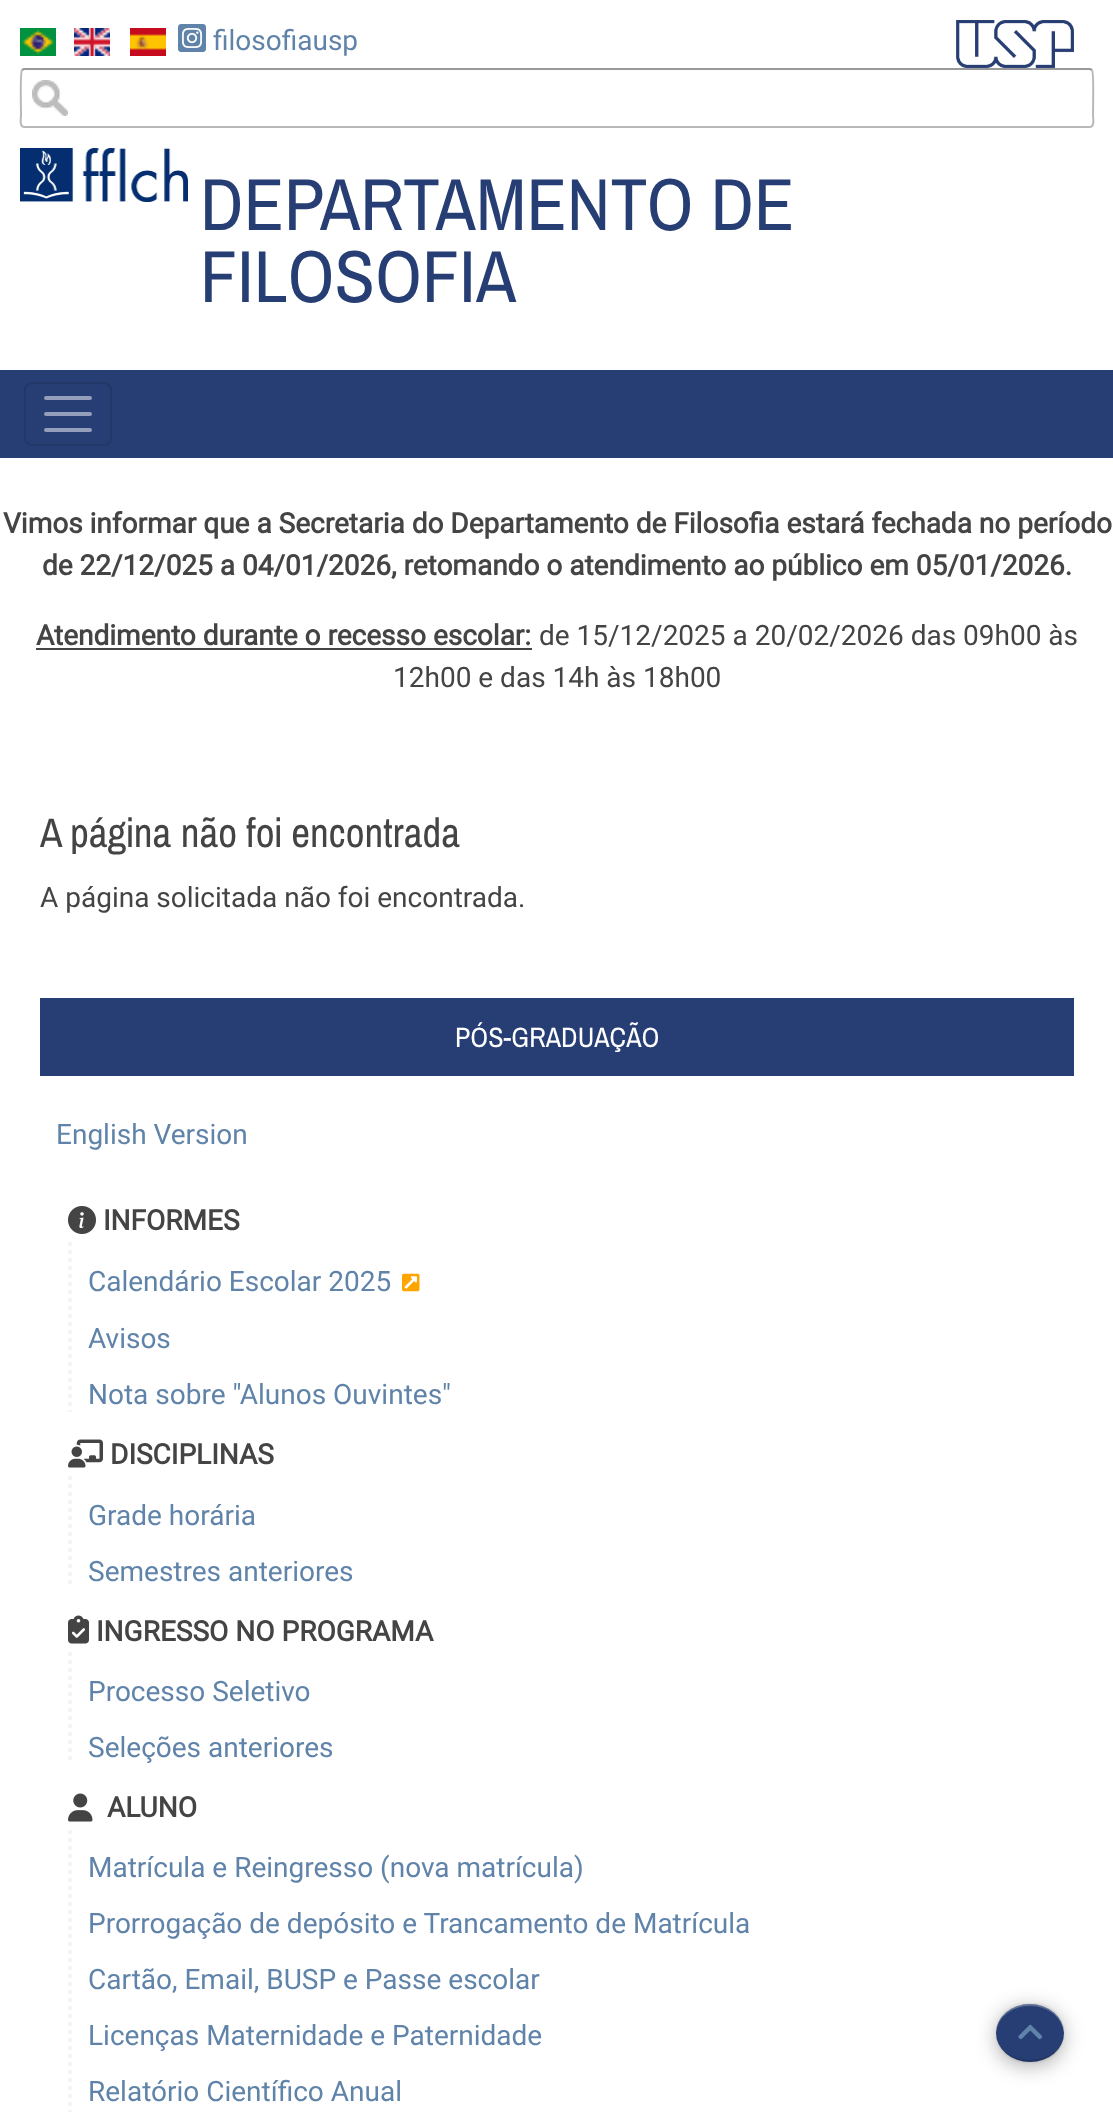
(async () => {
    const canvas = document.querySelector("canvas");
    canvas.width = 1113;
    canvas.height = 2112;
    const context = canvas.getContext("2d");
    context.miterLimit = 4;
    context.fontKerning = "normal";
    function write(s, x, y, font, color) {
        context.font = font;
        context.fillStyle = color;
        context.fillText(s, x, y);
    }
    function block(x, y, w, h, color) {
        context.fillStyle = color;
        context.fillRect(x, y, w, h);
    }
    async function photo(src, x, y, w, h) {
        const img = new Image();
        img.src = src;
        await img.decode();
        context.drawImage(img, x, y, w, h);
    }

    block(0, 0, 1113, 2112, "rgb(255, 255, 255)");
    await photo("media/1.png", 20, 28, 36, 28);
    await photo("media/2.png", 74, 28, 36, 28);
    await photo("media/3.png", 130, 28, 36, 28);
    await photo("media/4.png", 178, 24, 28, 28);
    write("filosofiausp", 213, 50, "28px Roboto", "rgb(96, 131, 169)");
    await photo("media/5.png", 956, 20, 118, 48);
    await photo("media/6.png", 32, 80, 36, 36);
    context.beginPath();
    context.moveTo(22, 70);
    context.lineTo(24, 69);
    context.lineTo(1090, 69);
    context.lineTo(1092, 70);
    context.strokeStyle = "rgb(153, 153, 153)";
    context.lineWidth = 2;
    context.stroke();
    context.beginPath();
    context.moveTo(1092, 70);
    context.bezierCurveTo(1094, 72, 1093, 109.5, 1093, 115.5);
    context.bezierCurveTo(1093, 116.5, 1095, 127, 1090, 127);
    context.lineTo(24, 127);
    context.bezierCurveTo(19, 127, 21, 116.5, 21, 115.5);
    context.bezierCurveTo(21, 109.5, 20, 72, 22, 70);
    context.strokeStyle = "rgb(184, 184, 184)";
    context.stroke();
    await photo("media/7.png", 20, 148, 168, 54);
    write("DEPARTAMENTO DE", 200, 230, "80.25px Pragati Narrow", "rgb(39, 62, 116)");
    write("FILOSOFIA", 200, 302, "80.25px Pragati Narrow", "rgb(39, 62, 116)");
    block(0, 370, 1113, 88, "rgb(39, 62, 116)");
    context.beginPath();
    context.roundRect(25, 383, 86, 62, 7);
    context.strokeStyle = "rgb(35, 56, 104)";
    context.stroke();
    context.beginPath();
    context.moveTo(46, 398);
    context.lineTo(90, 398);
    context.moveTo(46, 414);
    context.lineTo(90, 414);
    context.moveTo(46, 430);
    context.lineTo(90, 430);
    context.strokeStyle = "rgb(147, 159, 186)";
    context.lineWidth = 4;
    context.lineCap = "round";
    context.stroke();
    write("Vimos informar que a Secretaria do Departamento de Filosofia estará fechada no período", 3, 533, "bold 28px Roboto", "rgb(68, 68, 68)");
    write("de 22/12/025 a 04/01/2026, retomando o atendimento ao público em 05/01/2026.", 42, 575, "bold 28px Roboto", "rgb(68, 68, 68)");
    write("Atendimento durante o recesso escolar:", 36, 645, "bold 28px Roboto", "rgb(68, 68, 68)");
    block(36, 648, 496, 2, "rgb(68, 68, 68)");
    write("de 15/12/2025 a 20/02/2026 das 09h00 às", 539, 645, "28px Roboto", "rgb(68, 68, 68)");
    write("12h00 e das 14h às 18h00", 393, 687, "28px Roboto", "rgb(68, 68, 68)");
    write("A página não foi encontrada", 40, 847, "44.75px Pragati Narrow", "rgb(68, 68, 68)");
    write("A página solicitada não foi encontrada.", 40, 907, "28px Roboto", "rgb(68, 68, 68)");
    block(40, 998, 1034, 78, "rgb(39, 62, 116)");
    write("PÓS-GRADUAÇÃO", 455, 1047, "30.5px Pragati Narrow", "rgb(255, 255, 255)");
    write("English Version", 56, 1144, "28px Roboto", "rgb(96, 131, 169)");
    await photo("media/8.png", 68, 1206, 28, 28);
    write("INFORMES", 103, 1230, "bold 28px Roboto", "rgb(68, 68, 68)");
    context.beginPath();
    context.moveTo(70, 1242);
    context.lineTo(70, 1412);
    context.strokeStyle = "rgb(245, 245, 245)";
    context.lineCap = "butt";
    context.setLineDash([4, 4]);
    context.stroke();
    write("Calendário Escolar 2025", 88, 1291, "28px Roboto", "rgb(96, 131, 169)");
    await photo("media/9.png", 402, 1273, 18, 19);
    write("Avisos", 88, 1348, "28px Roboto", "rgb(96, 131, 169)");
    write("Nota sobre \"Alunos Ouvintes\"", 88, 1404, "28px Roboto", "rgb(96, 131, 169)");
    await photo("media/10.png", 68, 1439, 35, 29);
    write("DISCIPLINAS", 110, 1464, "bold 28px Roboto", "rgb(68, 68, 68)");
    context.beginPath();
    context.moveTo(70, 1476);
    context.lineTo(70, 1588);
    context.stroke();
    write("Grade horária", 88, 1525, "28px Roboto", "rgb(96, 131, 169)");
    write("Semestres anteriores", 88, 1581, "28px Roboto", "rgb(96, 131, 169)");
    await photo("media/11.png", 68, 1615, 21, 29);
    write("INGRESSO NO PROGRAMA", 96, 1641, "bold 28px Roboto", "rgb(68, 68, 68)");
    context.beginPath();
    context.moveTo(70, 1652);
    context.lineTo(70, 1764);
    context.stroke();
    write("Processo Seletivo", 88, 1701, "28px Roboto", "rgb(96, 131, 169)");
    write("Seleções anteriores", 88, 1757, "28px Roboto", "rgb(96, 131, 169)");
    await photo("media/12.png", 68, 1793, 25, 29);
    write("ALUNO", 107, 1817, "bold 28px Roboto", "rgb(68, 68, 68)");
    context.beginPath();
    context.moveTo(70, 1830);
    context.lineTo(70, 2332);
    context.stroke();
    write("Matrícula e Reingresso (nova matrícula)", 88, 1877, "28px Roboto", "rgb(96, 131, 169)");
    write("Prorrogação de depósito e Trancamento de Matrícula", 88, 1933, "28px Roboto", "rgb(96, 131, 169)");
    write("Cartão, Email, BUSP e Passe escolar", 88, 1989, "28px Roboto", "rgb(96, 131, 169)");
    write("Licenças Maternidade e Paternidade", 88, 2045, "28px Roboto", "rgb(96, 131, 169)");
    write("Relatório Científico Anual", 88, 2101, "28px Roboto", "rgb(96, 131, 169)");
    context.fillStyle = "rgba(0, 0, 0, 0.1)";
    context.filter = "blur(1px)";
    context.beginPath();
    context.roundRect(996, 2004, 68, 58, 29);
    context.fill();
    context.filter = "none";
    context.fillStyle = "rgba(0, 0, 0, 0.3)";
    context.filter = "blur(10px)";
    context.beginPath();
    context.roundRect(996, 2008, 68, 58, 29);
    context.fill();
    context.filter = "none";
    context.fillStyle = "rgb(39, 62, 116)";
    context.beginPath();
    context.ellipse(1030, 2033, 34, 29, 0, 0, Math.PI * 2);
    context.fill();
    context.fillStyle = "rgba(0, 0, 0, 0.15)";
    context.beginPath();
    context.moveTo(996, 2032);
    context.bezierCurveTo(996, 2038, 998, 2044, 1002, 2049);
    context.bezierCurveTo(1020, 2072, 1065, 2063, 1064, 2032);
    context.bezierCurveTo(1063, 2069, 997, 2069, 996, 2032);
    context.closePath();
    context.fill();
    context.fillStyle = "rgba(255, 255, 255, 0.25)";
    context.beginPath();
    context.moveTo(1030, 2006);
    context.bezierCurveTo(1049, 2006, 1063, 2018, 1064, 2034);
    context.bezierCurveTo(1065, 2003, 1020, 1994, 1002, 2017);
    context.bezierCurveTo(998, 2022, 996, 2028, 996, 2034);
    context.bezierCurveTo(997, 2018, 1011, 2006, 1030, 2006);
    context.closePath();
    context.fill();
    await photo("media/13.png", 1018, 2024, 25, 16);
})();
